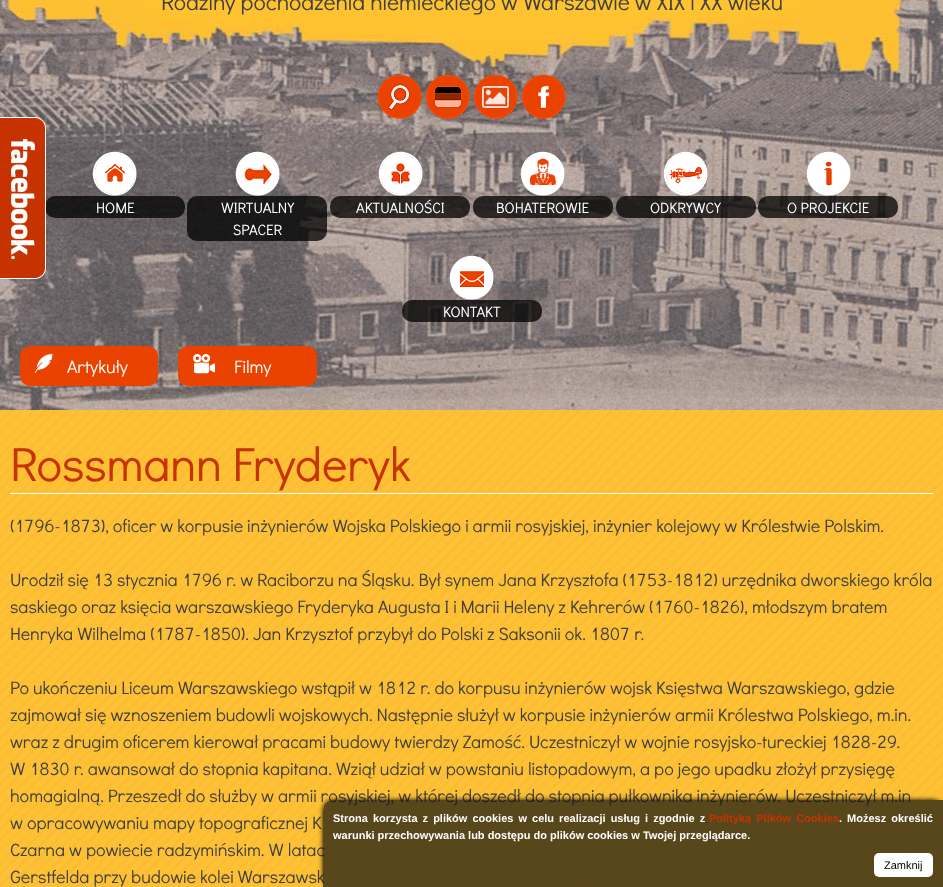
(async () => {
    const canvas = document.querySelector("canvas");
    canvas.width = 943;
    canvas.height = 887;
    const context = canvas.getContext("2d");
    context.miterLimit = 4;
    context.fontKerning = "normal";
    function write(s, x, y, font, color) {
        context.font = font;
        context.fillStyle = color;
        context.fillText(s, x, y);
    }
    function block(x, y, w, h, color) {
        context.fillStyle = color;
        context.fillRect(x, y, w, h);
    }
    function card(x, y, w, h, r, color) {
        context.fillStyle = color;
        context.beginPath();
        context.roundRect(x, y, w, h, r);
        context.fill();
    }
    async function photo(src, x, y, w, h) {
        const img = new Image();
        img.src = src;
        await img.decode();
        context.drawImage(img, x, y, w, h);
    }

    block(0, 0, 943, 887, "rgb(255, 255, 255)");
    await photo("media/2.png", 0, 0, 943, 410);
    await photo("media/1.png", 0, 117, 46, 162);
    write("Rodziny pochodzenia niemieckiego w Warszawie w XIX i XX wieku", 161, 10, "500 23px Didact Gothic", "rgb(64, 64, 64)");
    await photo("media/3.png", 377, 74, 45, 45);
    await photo("media/4.png", 425, 74, 45, 45);
    await photo("media/5.png", 473, 74, 45, 45);
    await photo("media/6.png", 521, 74, 45, 45);
    await photo("media/7.png", 92, 151, 45, 45);
    await photo("media/8.png", 46, 196, 139, 22);
    write("HOME", 96, 213, "500 15px Didact Gothic", "rgb(255, 255, 255)");
    await photo("media/9.png", 235, 151, 45, 45);
    await photo("media/10.png", 187, 196, 140, 45);
    write("WIRTUALNY", 221, 213, "500 15px Didact Gothic", "rgb(255, 255, 255)");
    write("SPACER", 233, 235, "500 15px Didact Gothic", "rgb(255, 255, 255)");
    await photo("media/11.png", 378, 151, 45, 45);
    await photo("media/12.png", 330, 196, 140, 22);
    write("AKTUALNOŚCI", 356, 213, "500 15px Didact Gothic", "rgb(255, 255, 255)");
    await photo("media/13.png", 520, 151, 45, 45);
    await photo("media/14.png", 473, 196, 140, 22);
    write("BOHATEROWIE", 496, 213, "500 15px Didact Gothic", "rgb(255, 255, 255)");
    await photo("media/15.png", 663, 151, 45, 45);
    await photo("media/16.png", 616, 196, 140, 22);
    write("ODKRYWCY", 650, 213, "500 15px Didact Gothic", "rgb(255, 255, 255)");
    await photo("media/17.png", 806, 151, 45, 45);
    await photo("media/18.png", 758, 196, 140, 22);
    write("O PROJEKCIE", 787, 213, "500 15px Didact Gothic", "rgb(255, 255, 255)");
    await photo("media/19.png", 449, 255, 45, 45);
    await photo("media/20.png", 402, 300, 140, 22);
    write("KONTAKT", 443, 317, "500 15px Didact Gothic", "rgb(255, 255, 255)");
    card(20, 346, 138, 40, 10, "rgb(234, 66, 0)");
    await photo("media/21.png", 35, 354, 18, 19);
    write("Artykuły", 67, 373, "500 18px Didact Gothic", "rgb(255, 255, 255)");
    card(178, 346, 139, 40, 10, "rgb(234, 66, 0)");
    await photo("media/22.png", 193, 354, 22, 20);
    write("Filmy", 234, 373, "500 18px Didact Gothic", "rgb(255, 255, 255)");
    await photo("media/23.png", 0, 410, 943, 477);
    block(10, 493, 923, 1, "rgb(255, 255, 255)");
    write("Rossmann Fryderyk", 10, 481, "500 48px Didact Gothic", "rgb(198, 51, 0)");
    write("(1796-1873), oficer w korpusie inżynierów Wojska Polskiego i armii rosyjskiej, inżynier kolejowy w Królestwie Polskim.", 10, 532, "500 18px Didact Gothic", "rgb(64, 64, 64)");
    write("Urodził się 13 stycznia 1796 r. w Raciborzu na Śląsku. Był synem Jana Krzysztofa (1753-1812) urzędnika dworskiego króla", 10, 586, "500 18px Didact Gothic", "rgb(64, 64, 64)");
    write("saskiego oraz księcia warszawskiego Fryderyka Augusta I i Marii Heleny z Kehrerów (1760-1826), młodszym bratem", 10, 613, "500 18px Didact Gothic", "rgb(64, 64, 64)");
    write("Henryka Wilhelma (1787-1850). Jan Krzysztof przybył do Polski z Saksonii ok. 1807 r.", 10, 640, "500 18px Didact Gothic", "rgb(64, 64, 64)");
    write("Po ukończeniu Liceum Warszawskiego wstąpił w 1812 r. do korpusu inżynierów wojsk Księstwa Warszawskiego, gdzie", 10, 694, "500 18px Didact Gothic", "rgb(64, 64, 64)");
    write("zajmował się wznoszeniem budowli wojskowych. Następnie służył w korpusie inżynierów armii Królestwa Polskiego, m.in.", 10, 721, "500 18px Didact Gothic", "rgb(64, 64, 64)");
    write("wraz z drugim oficerem kierował pracami budowy twierdzy Zamość. Uczestniczył w wojnie rosyjsko-tureckiej 1828-29.", 10, 748, "500 18px Didact Gothic", "rgb(64, 64, 64)");
    write("W 1830 r. awansował do stopnia kapitana. Wziął udział w powstaniu listopadowym, a po jego upadku złożył przysięgę", 10, 775, "500 18px Didact Gothic", "rgb(64, 64, 64)");
    write("homagialną. Przeszedł do służby w armii rosyjskiej, w której doszedł do stopnia pułkownika inżynierów. Uczestniczył m.in", 10, 802, "500 18px Didact Gothic", "rgb(64, 64, 64)");
    write("w opracowywaniu mapy topograficznej K", 10, 829, "500 18px Didact Gothic", "rgb(64, 64, 64)");
    write("Czarna w powiecie radzymińskim. W latac", 10, 856, "500 18px Didact Gothic", "rgb(64, 64, 64)");
    write("Gerstfelda przy budowie kolei Warszawsk", 10, 883, "500 18px Didact Gothic", "rgb(64, 64, 64)");
    context.save();
    context.beginPath();
    context.moveTo(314, 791);
    context.lineTo(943, 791);
    context.lineTo(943, 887);
    context.lineTo(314, 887);
    context.closePath();
    context.moveTo(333, 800);
    context.lineTo(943, 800);
    context.lineTo(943, 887);
    context.lineTo(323, 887);
    context.lineTo(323, 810);
    context.bezierCurveTo(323, 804.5, 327.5, 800, 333, 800);
    context.closePath();
    context.clip("evenodd");
    context.fillStyle = "rgb(0, 0, 0)";
    context.filter = "blur(2.5px)";
    context.beginPath();
    context.roundRect(323, 800, 620, 87, 10);
    context.fill();
    context.filter = "none";
    context.restore();
    await photo("media/24.png", 323, 800, 620, 87);
    context.wordSpacing = "2px";
    write("Strona korzysta z plików cookies w celu realizacji usług i zgodnie z", 333, 822, "bold 11px Liberation Sans", "rgb(255, 255, 255)");
    write("Polityką Plików Cookies", 709, 822, "bold 11px Liberation Sans", "rgb(198, 51, 0)");
    write(". Możesz określić", 839, 822, "bold 11px Liberation Sans", "rgb(255, 255, 255)");
    context.wordSpacing = "0px";
    write("warunki przechowywania lub dostępu do plików cookies w Twojej przeglądarce.", 333, 839, "bold 11px Liberation Sans", "rgb(255, 255, 255)");
    card(874, 853, 59, 24, 5, "rgb(255, 255, 255)");
    write("Zamknij", 884, 869, "11px Liberation Sans", "rgb(0, 0, 0)");
})();
